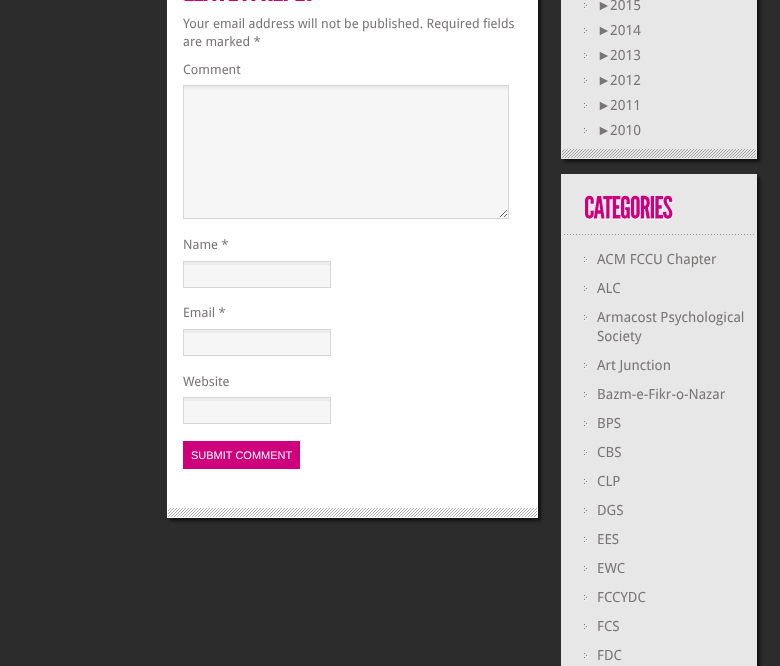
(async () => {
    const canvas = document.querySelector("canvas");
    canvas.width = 780;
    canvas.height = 666;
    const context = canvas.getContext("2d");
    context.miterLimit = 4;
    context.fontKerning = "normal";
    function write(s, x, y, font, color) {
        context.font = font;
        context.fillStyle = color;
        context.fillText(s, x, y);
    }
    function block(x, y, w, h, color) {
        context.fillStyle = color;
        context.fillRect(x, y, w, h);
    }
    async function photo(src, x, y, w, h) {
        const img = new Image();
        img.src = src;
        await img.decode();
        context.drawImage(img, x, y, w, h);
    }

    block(0, 0, 780, 666, "rgb(44, 44, 44)");
    context.fillStyle = "rgba(0, 0, 0, 0.6)";
    context.filter = "blur(1.5px)";
    context.beginPath();
    context.rect(170, -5, 371, 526);
    context.fill();
    context.filter = "none";
    block(167, 0, 371, 518, "rgb(255, 255, 255)");
    await photo("media/1.png", 168, 508, 369, 9);
    await photo("media/2.png", 184, 0, 54, 1);
    await photo("media/3.png", 242, 0, 14, 1);
    await photo("media/4.png", 261, 0, 51, 1);
    write("Your email address will not be published. Required fields", 183, 28, "13px Droid Sans", "rgb(122, 117, 117)");
    write("are marked *", 183, 46, "13px Droid Sans", "rgb(122, 117, 117)");
    write("Comment", 183, 74, "13px Droid Sans", "rgb(122, 117, 117)");
    block(184, 95, 324, 123, "rgb(246, 246, 246)");
    await photo("media/5.png", 184, 86, 324, 131);
    context.strokeStyle = "rgb(214, 214, 214)";
    context.strokeRect(183.5, 85.5, 325, 133);
    write("Name *", 183, 249, "13px Droid Sans", "rgb(122, 117, 117)");
    block(184, 265, 146, 22, "rgb(246, 246, 246)");
    block(183, 262, 148, 3, "rgb(236, 236, 236)");
    context.strokeRect(183.5, 261.5, 147, 26);
    write("Email *", 183, 317, "13px Droid Sans", "rgb(122, 117, 117)");
    block(184, 333, 146, 22, "rgb(246, 246, 246)");
    block(183, 330, 148, 3, "rgb(236, 236, 236)");
    context.strokeRect(183.5, 329.5, 147, 26);
    write("Website", 183, 386, "13px Droid Sans", "rgb(122, 117, 117)");
    block(184, 401, 146, 22, "rgb(246, 246, 246)");
    block(183, 398, 148, 3, "rgb(236, 236, 236)");
    context.strokeRect(183.5, 397.5, 147, 26);
    block(183, 441, 117, 28, "rgb(206, 0, 124)");
    write("SUBMIT COMMENT", 191, 459, "11px Liberation Sans", "rgb(255, 255, 255)");
    context.fillStyle = "rgba(0, 0, 0, 0.6)";
    context.filter = "blur(1.5px)";
    context.beginPath();
    context.rect(564, -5, 196, 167);
    context.fill();
    context.filter = "none";
    block(562, 0, 194, 158, "rgb(231, 231, 231)");
    await photo("media/6.png", 562, 149, 194, 9);
    context.strokeStyle = "rgb(231, 231, 231)";
    context.strokeRect(561.5, -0.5, 195, 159);
    await photo("media/7.png", 584, 3, 4, 6);
    write("►", 597, 10, "14px Liberation Sans", "rgb(122, 117, 117)");
    write("2015", 610, 10, "14px Droid Sans", "rgb(122, 117, 117)");
    await photo("media/7.png", 584, 28, 4, 6);
    write("►", 597, 35, "14px Liberation Sans", "rgb(122, 117, 117)");
    write("2014", 610, 35, "14px Droid Sans", "rgb(122, 117, 117)");
    await photo("media/7.png", 584, 53, 4, 6);
    write("►", 597, 60, "14px Liberation Sans", "rgb(122, 117, 117)");
    write("2013", 610, 60, "14px Droid Sans", "rgb(122, 117, 117)");
    await photo("media/7.png", 584, 78, 4, 6);
    write("►", 597, 85, "14px Liberation Sans", "rgb(122, 117, 117)");
    write("2012", 610, 85, "14px Droid Sans", "rgb(122, 117, 117)");
    await photo("media/7.png", 584, 103, 4, 6);
    write("►", 597, 110, "14px Liberation Sans", "rgb(122, 117, 117)");
    write("2011", 610, 110, "14px Droid Sans", "rgb(122, 117, 117)");
    await photo("media/7.png", 584, 128, 4, 6);
    write("►", 597, 135, "14px Liberation Sans", "rgb(122, 117, 117)");
    write("2010", 610, 135, "14px Droid Sans", "rgb(122, 117, 117)");
    context.fillStyle = "rgba(0, 0, 0, 0.6)";
    context.filter = "blur(1.5px)";
    context.beginPath();
    context.rect(564, 177, 196, 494);
    context.fill();
    context.filter = "none";
    block(561, 174, 196, 492, "rgb(231, 231, 231)");
    await photo("media/8.png", 564, 234, 190, 1);
    await photo("media/9.png", 585, 195, 89, 25);
    await photo("media/7.png", 584, 257, 4, 6);
    write("ACM FCCU Chapter", 597, 264, "14px Droid Sans", "rgb(122, 117, 117)");
    await photo("media/7.png", 584, 286, 4, 6);
    write("ALC", 597, 293, "14px Droid Sans", "rgb(122, 117, 117)");
    await photo("media/7.png", 584, 315, 4, 6);
    write("Armacost Psychological", 597, 322, "14px Droid Sans", "rgb(122, 117, 117)");
    write("Society", 597, 341, "14px Droid Sans", "rgb(122, 117, 117)");
    await photo("media/7.png", 584, 363, 4, 6);
    write("Art Junction", 597, 370, "14px Droid Sans", "rgb(122, 117, 117)");
    await photo("media/7.png", 584, 392, 4, 6);
    write("Bazm-e-Fikr-o-Nazar", 597, 399, "14px Droid Sans", "rgb(122, 117, 117)");
    await photo("media/7.png", 584, 421, 4, 6);
    write("BPS", 597, 428, "14px Droid Sans", "rgb(122, 117, 117)");
    await photo("media/7.png", 584, 450, 4, 6);
    write("CBS", 597, 457, "14px Droid Sans", "rgb(122, 117, 117)");
    await photo("media/7.png", 584, 479, 4, 6);
    write("CLP", 597, 486, "14px Droid Sans", "rgb(122, 117, 117)");
    await photo("media/7.png", 584, 508, 4, 6);
    write("DGS", 597, 515, "14px Droid Sans", "rgb(122, 117, 117)");
    await photo("media/7.png", 584, 537, 4, 6);
    write("EES", 597, 544, "14px Droid Sans", "rgb(122, 117, 117)");
    await photo("media/7.png", 584, 566, 4, 6);
    write("EWC", 597, 573, "14px Droid Sans", "rgb(122, 117, 117)");
    await photo("media/7.png", 584, 595, 4, 6);
    write("FCCYDC", 597, 602, "14px Droid Sans", "rgb(122, 117, 117)");
    await photo("media/7.png", 584, 624, 4, 6);
    write("FCS", 597, 631, "14px Droid Sans", "rgb(122, 117, 117)");
    await photo("media/7.png", 584, 653, 4, 6);
    write("FDC", 597, 660, "14px Droid Sans", "rgb(122, 117, 117)");
})();
